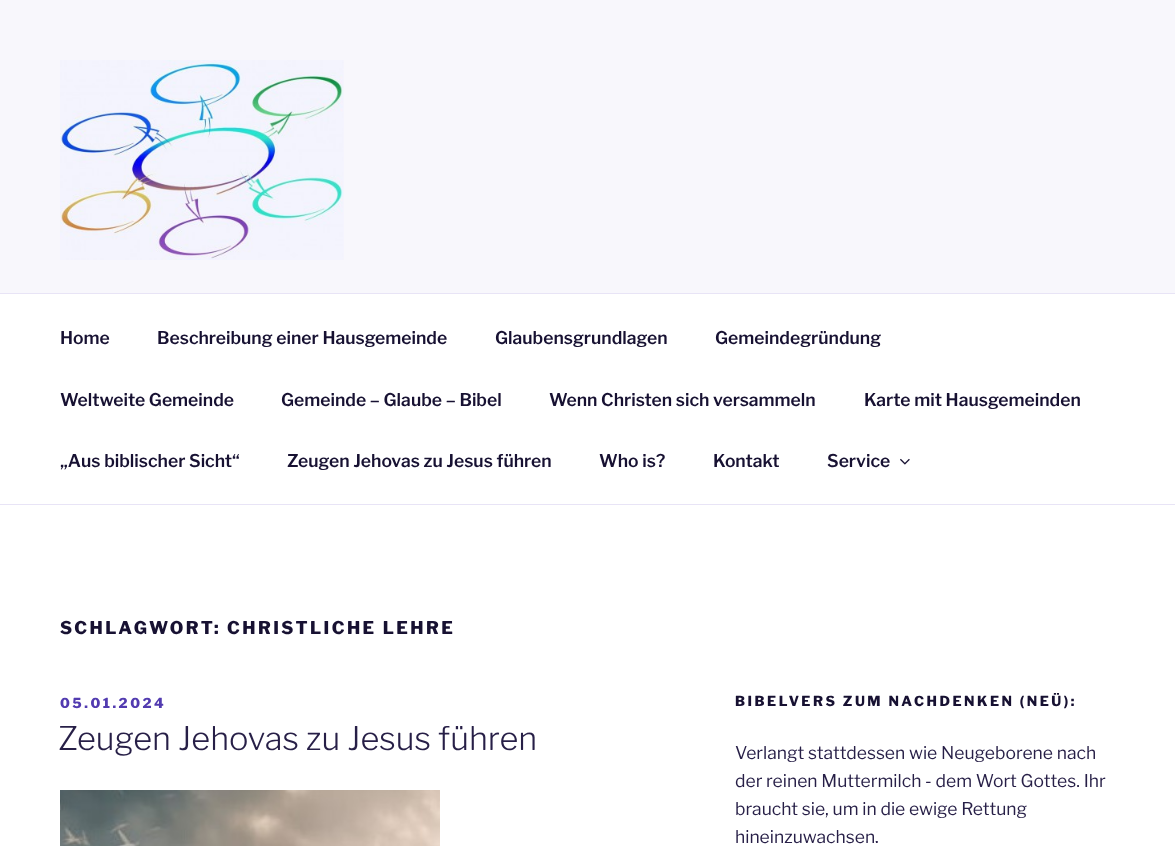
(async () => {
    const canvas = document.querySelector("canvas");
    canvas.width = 1175;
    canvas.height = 846;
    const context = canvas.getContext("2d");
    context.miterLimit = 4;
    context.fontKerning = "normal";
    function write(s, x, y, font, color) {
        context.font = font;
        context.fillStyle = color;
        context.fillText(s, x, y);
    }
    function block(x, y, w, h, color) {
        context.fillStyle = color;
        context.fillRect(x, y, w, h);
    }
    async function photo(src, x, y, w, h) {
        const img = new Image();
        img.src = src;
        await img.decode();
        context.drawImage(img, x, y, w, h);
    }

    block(0, 0, 1175, 846, "rgb(255, 255, 255)");
    block(0, 0, 1175, 293, "rgb(248, 247, 252)");
    await photo("media/1.png", 60, 60, 284, 200);
    block(0, 293, 1175, 1, "rgb(232, 228, 246)");
    block(0, 504, 1175, 1, "rgb(232, 228, 246)");
    write("Home", 60, 344, "100 17.5px 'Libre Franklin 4'", "rgb(23, 17, 50)");
    write("Beschreibung einer Hausgemeinde", 157, 344, "100 17.5px 'Libre Franklin 4'", "rgb(23, 17, 50)");
    write("Glaubensgrundlagen", 495, 344, "100 17.5px 'Libre Franklin 4'", "rgb(23, 17, 50)");
    write("Gemeindegründung", 715, 344, "100 17.5px 'Libre Franklin 4'", "rgb(23, 17, 50)");
    write("Weltweite Gemeinde", 60, 406, "100 17.5px 'Libre Franklin 4'", "rgb(23, 17, 50)");
    write("Gemeinde – Glaube – Bibel", 281, 406, "100 17.5px 'Libre Franklin 4'", "rgb(23, 17, 50)");
    write("Wenn Christen sich versammeln", 549, 406, "100 17.5px 'Libre Franklin 4'", "rgb(23, 17, 50)");
    write("Karte mit Hausgemeinden", 864, 406, "100 17.5px 'Libre Franklin 4'", "rgb(23, 17, 50)");
    write("„Aus biblischer Sicht“", 60, 467, "100 17.5px 'Libre Franklin 4'", "rgb(23, 17, 50)");
    write("Zeugen Jehovas zu Jesus führen", 287, 467, "100 17.5px 'Libre Franklin 4'", "rgb(23, 17, 50)");
    write("Who is?", 599, 467, "100 17.5px 'Libre Franklin 4'", "rgb(23, 17, 50)");
    write("Kontakt", 713, 467, "100 17.5px 'Libre Franklin 4'", "rgb(23, 17, 50)");
    write("Service", 827, 467, "100 17.5px 'Libre Franklin 4'", "rgb(23, 17, 50)");
    await photo("media/2.png", 900, 458, 10, 7);
    context.letterSpacing = "2.45px";
    write("SCHLAGWORT: CHRISTLICHE LEHRE", 60, 634, "100 17.5px Libre Franklin", "rgb(23, 17, 50)");
    context.letterSpacing = "2.5px";
    write("05.01.2024", 60, 708, "100 13.75px Libre Franklin", "rgb(82, 59, 176)");
    context.letterSpacing = "0px";
    write("Zeugen Jehovas zu Jesus führen", 58, 750, "100 32.5px 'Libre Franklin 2'", "rgb(39, 31, 71)");
    await photo("media/3.png", 60, 790, 380, 56);
    context.letterSpacing = "2.5px";
    write("BIBELVERS ZUM NACHDENKEN (NEÜ):", 735, 706, "100 13.75px Libre Franklin", "rgb(23, 17, 50)");
    context.letterSpacing = "0px";
    write("Verlangt stattdessen wie Neugeborene nach", 735, 759, "100 17.5px 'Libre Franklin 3'", "rgb(39, 31, 71)");
    write("der reinen Muttermilch - dem Wort Gottes. Ihr", 735, 787, "100 17.5px 'Libre Franklin 3'", "rgb(39, 31, 71)");
    write("braucht sie, um in die ewige Rettung", 735, 815, "100 17.5px 'Libre Franklin 3'", "rgb(39, 31, 71)");
    write("hineinzuwachsen.", 735, 843, "100 17.5px 'Libre Franklin 3'", "rgb(39, 31, 71)");
})();
